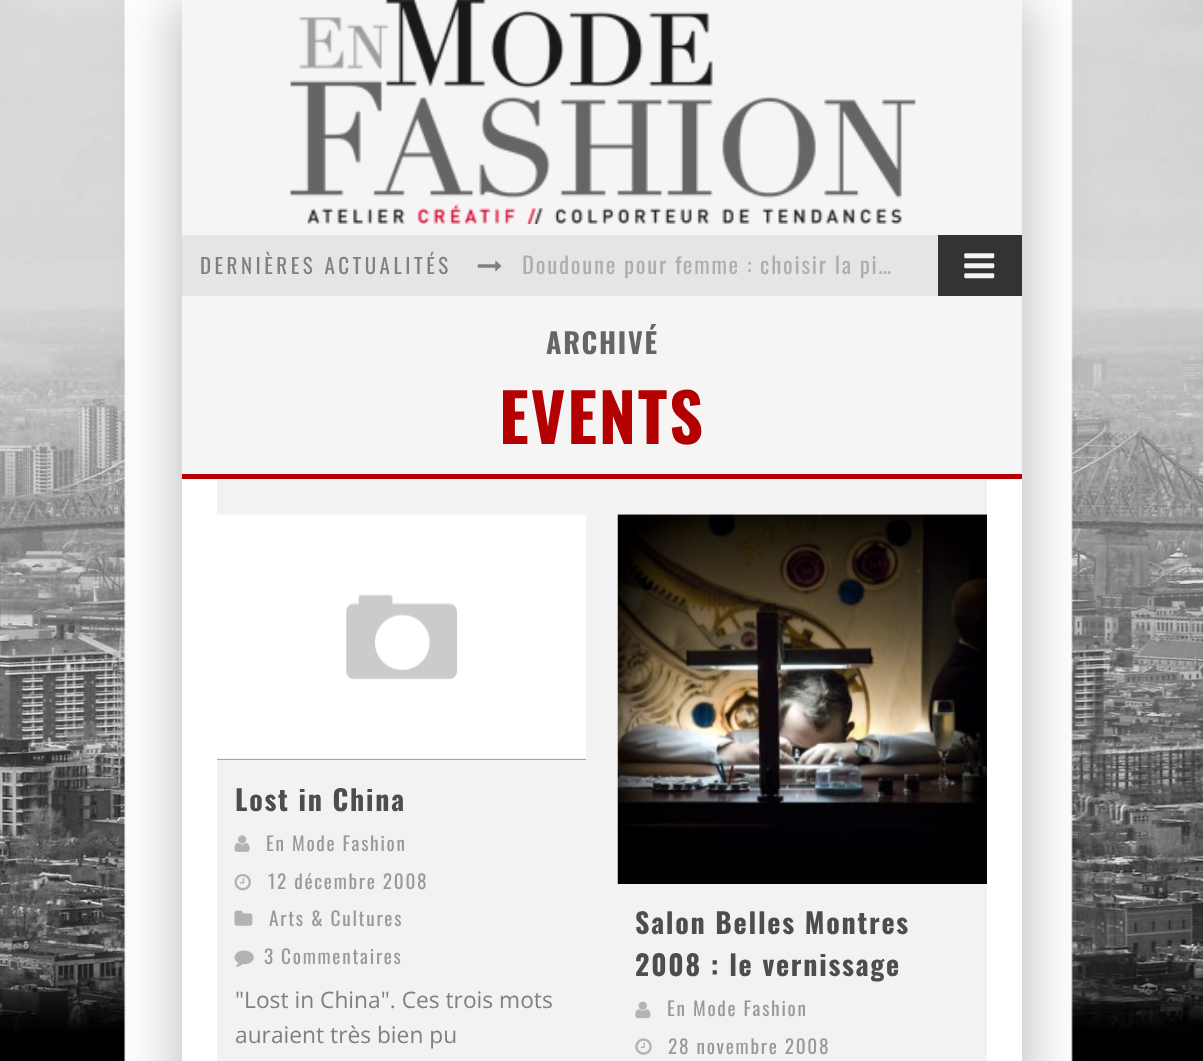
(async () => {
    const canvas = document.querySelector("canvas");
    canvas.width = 1203;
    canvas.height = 1061;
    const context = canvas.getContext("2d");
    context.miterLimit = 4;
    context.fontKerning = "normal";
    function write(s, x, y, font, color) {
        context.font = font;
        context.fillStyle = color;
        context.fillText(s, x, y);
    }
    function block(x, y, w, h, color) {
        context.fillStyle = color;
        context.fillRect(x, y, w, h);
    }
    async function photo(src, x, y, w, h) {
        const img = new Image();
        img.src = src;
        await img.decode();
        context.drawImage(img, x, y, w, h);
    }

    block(0, 0, 1203, 1061, "rgb(255, 255, 255)");
    await photo("media/1.png", 0, 0, 1203, 1061);
    context.save();
    context.beginPath();
    context.moveTo(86, 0);
    context.lineTo(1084, 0);
    context.lineTo(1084, 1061);
    context.lineTo(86, 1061);
    context.closePath();
    context.moveTo(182, 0);
    context.lineTo(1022, 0);
    context.lineTo(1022, 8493);
    context.lineTo(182, 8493);
    context.closePath();
    context.clip("evenodd");
    context.fillStyle = "rgba(0, 0, 0, 0.15)";
    context.filter = "blur(26px)";
    context.beginPath();
    context.rect(165, 0, 840, 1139);
    context.fill();
    context.filter = "none";
    context.restore();
    context.save();
    context.beginPath();
    context.moveTo(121, 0);
    context.lineTo(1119, 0);
    context.lineTo(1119, 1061);
    context.lineTo(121, 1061);
    context.closePath();
    context.moveTo(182, 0);
    context.lineTo(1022, 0);
    context.lineTo(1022, 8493);
    context.lineTo(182, 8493);
    context.closePath();
    context.clip("evenodd");
    context.fillStyle = "rgba(0, 0, 0, 0.15)";
    context.filter = "blur(26px)";
    context.beginPath();
    context.rect(200, 0, 840, 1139);
    context.fill();
    context.filter = "none";
    context.restore();
    block(182, 0, 840, 235, "rgb(245, 245, 245)");
    await photo("media/2.png", 290, 0, 626, 224);
    block(182, 235, 756, 61, "rgb(229, 229, 229)");
    context.letterSpacing = "3.5px";
    write("DERNIÈRES ACTUALITÉS", 200, 274, "21px Oswald", "rgb(128, 128, 128)");
    await photo("media/3.png", 477, 260, 25, 12);
    context.letterSpacing = "1.75px";
    write("Doudoune pour femme : choisir la pi…", 522, 274, "22.75px Oswald", "rgb(174, 174, 174)");
    block(938, 235, 84, 61, "rgb(51, 51, 51)");
    await photo("media/4.png", 964, 253, 31, 26);
    block(182, 296, 840, 184, "rgb(245, 245, 245)");
    block(182, 474, 840, 5, "rgb(179, 0, 0)");
    write("ARCHIVÉ", 546, 354, "bold 28px Oswald", "rgb(102, 102, 102)");
    write("EVENTS", 499, 444, "bold 66.5px Oswald", "rgb(179, 0, 0)");
    block(217, 480, 770, 581, "rgb(242, 242, 242)");
    block(217, 758, 369, 2, "rgb(179, 0, 0)");
    await photo("media/5.png", 217, 514, 369, 246);
    write("Lost in China", 235, 811, "bold 28px Oswald", "rgb(77, 77, 77)");
    await photo("media/6.png", 234, 835, 16, 17);
    write("En Mode Fashion", 266, 851, "19.25px Oswald", "rgb(153, 153, 153)");
    await photo("media/7.png", 234, 873, 17, 18);
    write("12 décembre 2008", 268, 889, "19.25px Oswald", "rgb(153, 153, 153)");
    await photo("media/8.png", 234, 910, 19, 16);
    write("Arts & Cultures", 269, 926, "19.25px Oswald", "rgb(153, 153, 153)");
    await photo("media/9.png", 234, 950, 20, 17);
    write("3 Commentaires", 264, 964, "19.25px Oswald", "rgb(153, 153, 153)");
    context.letterSpacing = "0px";
    write("\"Lost in China\". Ces trois mots", 235, 1008, "22.75px Open Sans", "rgb(128, 128, 128)");
    write("auraient très bien pu", 235, 1043, "22.75px Open Sans", "rgb(128, 128, 128)");
    await photo("media/10.png", 617, 514, 370, 370);
    context.letterSpacing = "1.75px";
    write("Salon Belles Montres", 635, 934, "bold 28px Oswald", "rgb(77, 77, 77)");
    write("2008 : le vernissage", 635, 976, "bold 28px Oswald", "rgb(77, 77, 77)");
    await photo("media/11.png", 635, 1001, 16, 18);
    write("En Mode Fashion", 667, 1016, "19.25px Oswald", "rgb(153, 153, 153)");
    await photo("media/12.png", 635, 1038, 17, 17);
    write("28 novembre 2008", 668, 1054, "19.25px Oswald", "rgb(153, 153, 153)");
})();
